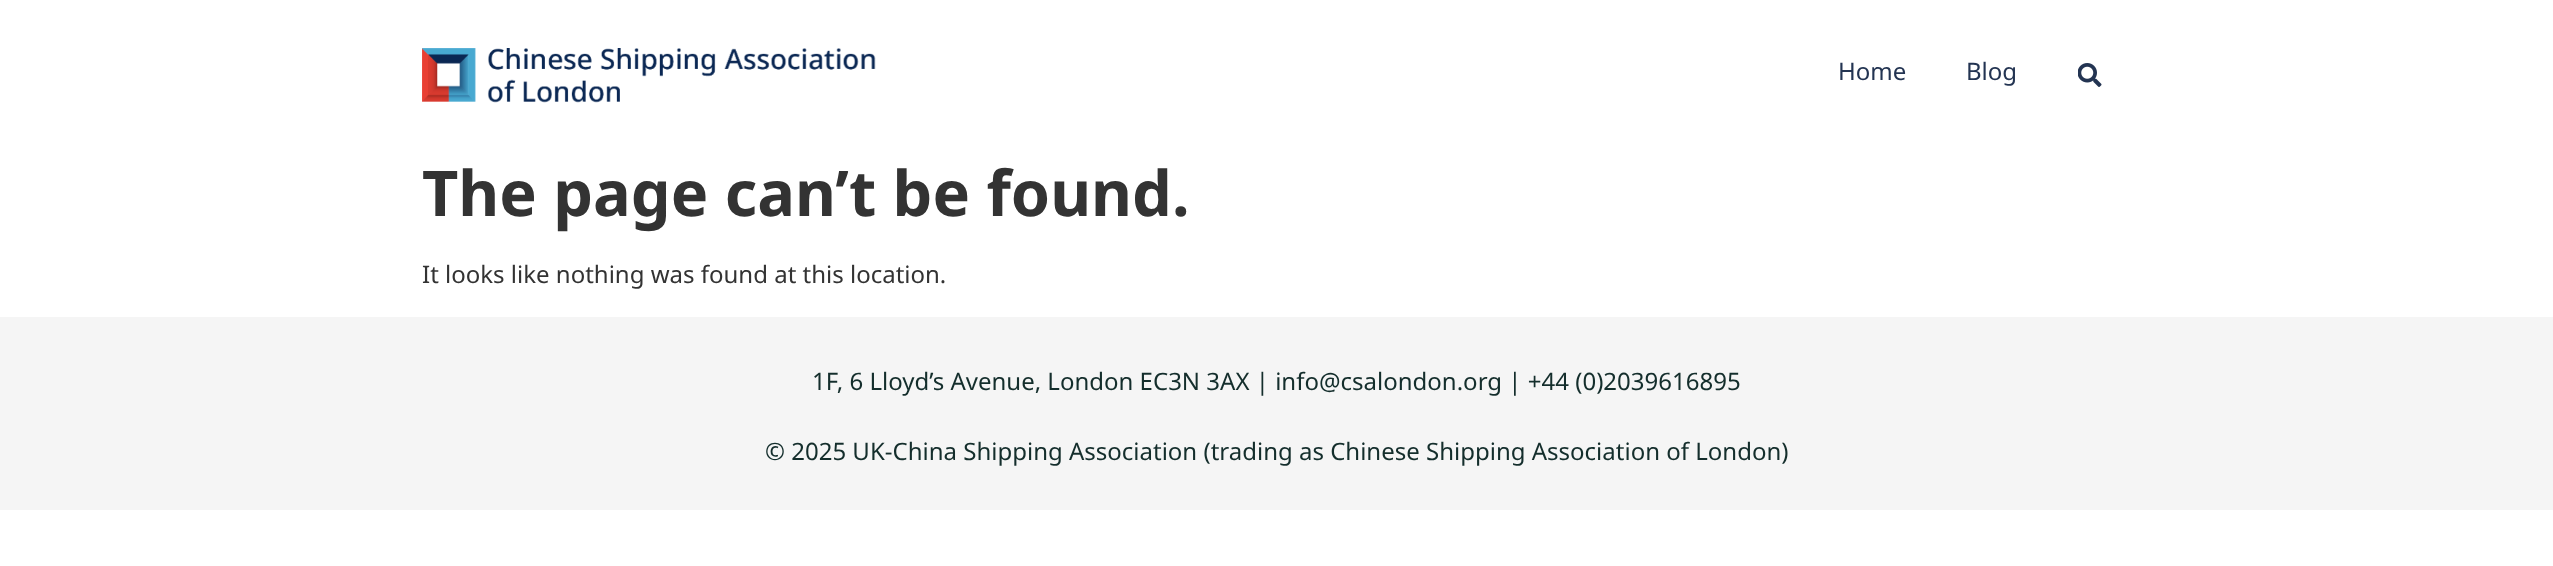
(async () => {
    const canvas = document.querySelector("canvas");
    canvas.width = 2553;
    canvas.height = 566;
    const context = canvas.getContext("2d");
    context.miterLimit = 4;
    context.fontKerning = "normal";
    function write(s, x, y, font, color) {
        context.font = font;
        context.fillStyle = color;
        context.fillText(s, x, y);
    }
    function block(x, y, w, h, color) {
        context.fillStyle = color;
        context.fillRect(x, y, w, h);
    }
    async function photo(src, x, y, w, h) {
        const img = new Image();
        img.src = src;
        await img.decode();
        context.drawImage(img, x, y, w, h);
    }

    block(0, 0, 2553, 566, "rgb(255, 255, 255)");
    await photo("media/1.png", 422, 48, 454, 55);
    write("Home", 1838, 80, "24px Noto Sans", "rgb(35, 52, 82)");
    write("Blog", 1966, 80, "24px Noto Sans", "rgb(35, 52, 82)");
    await photo("media/2.png", 2078, 63, 24, 24);
    write("The page can’t be found.", 422, 216, "bold 63px Noto Sans", "rgb(51, 51, 51)");
    write("It looks like nothing was found at this location.", 422, 283, "24px Noto Sans", "rgb(51, 51, 51)");
    block(0, 317, 2553, 193, "rgb(245, 245, 245)");
    write("1F, 6 Lloyd’s Avenue, London EC3N 3AX | info@csalondon.org | +44 (0)2039616895", 812, 390, "24px Noto Sans", "rgb(20, 46, 44)");
    write("© 2025 UK-China Shipping Association (trading as Chinese Shipping Association of London)", 765, 460, "24px Noto Sans", "rgb(20, 46, 44)");
})();
